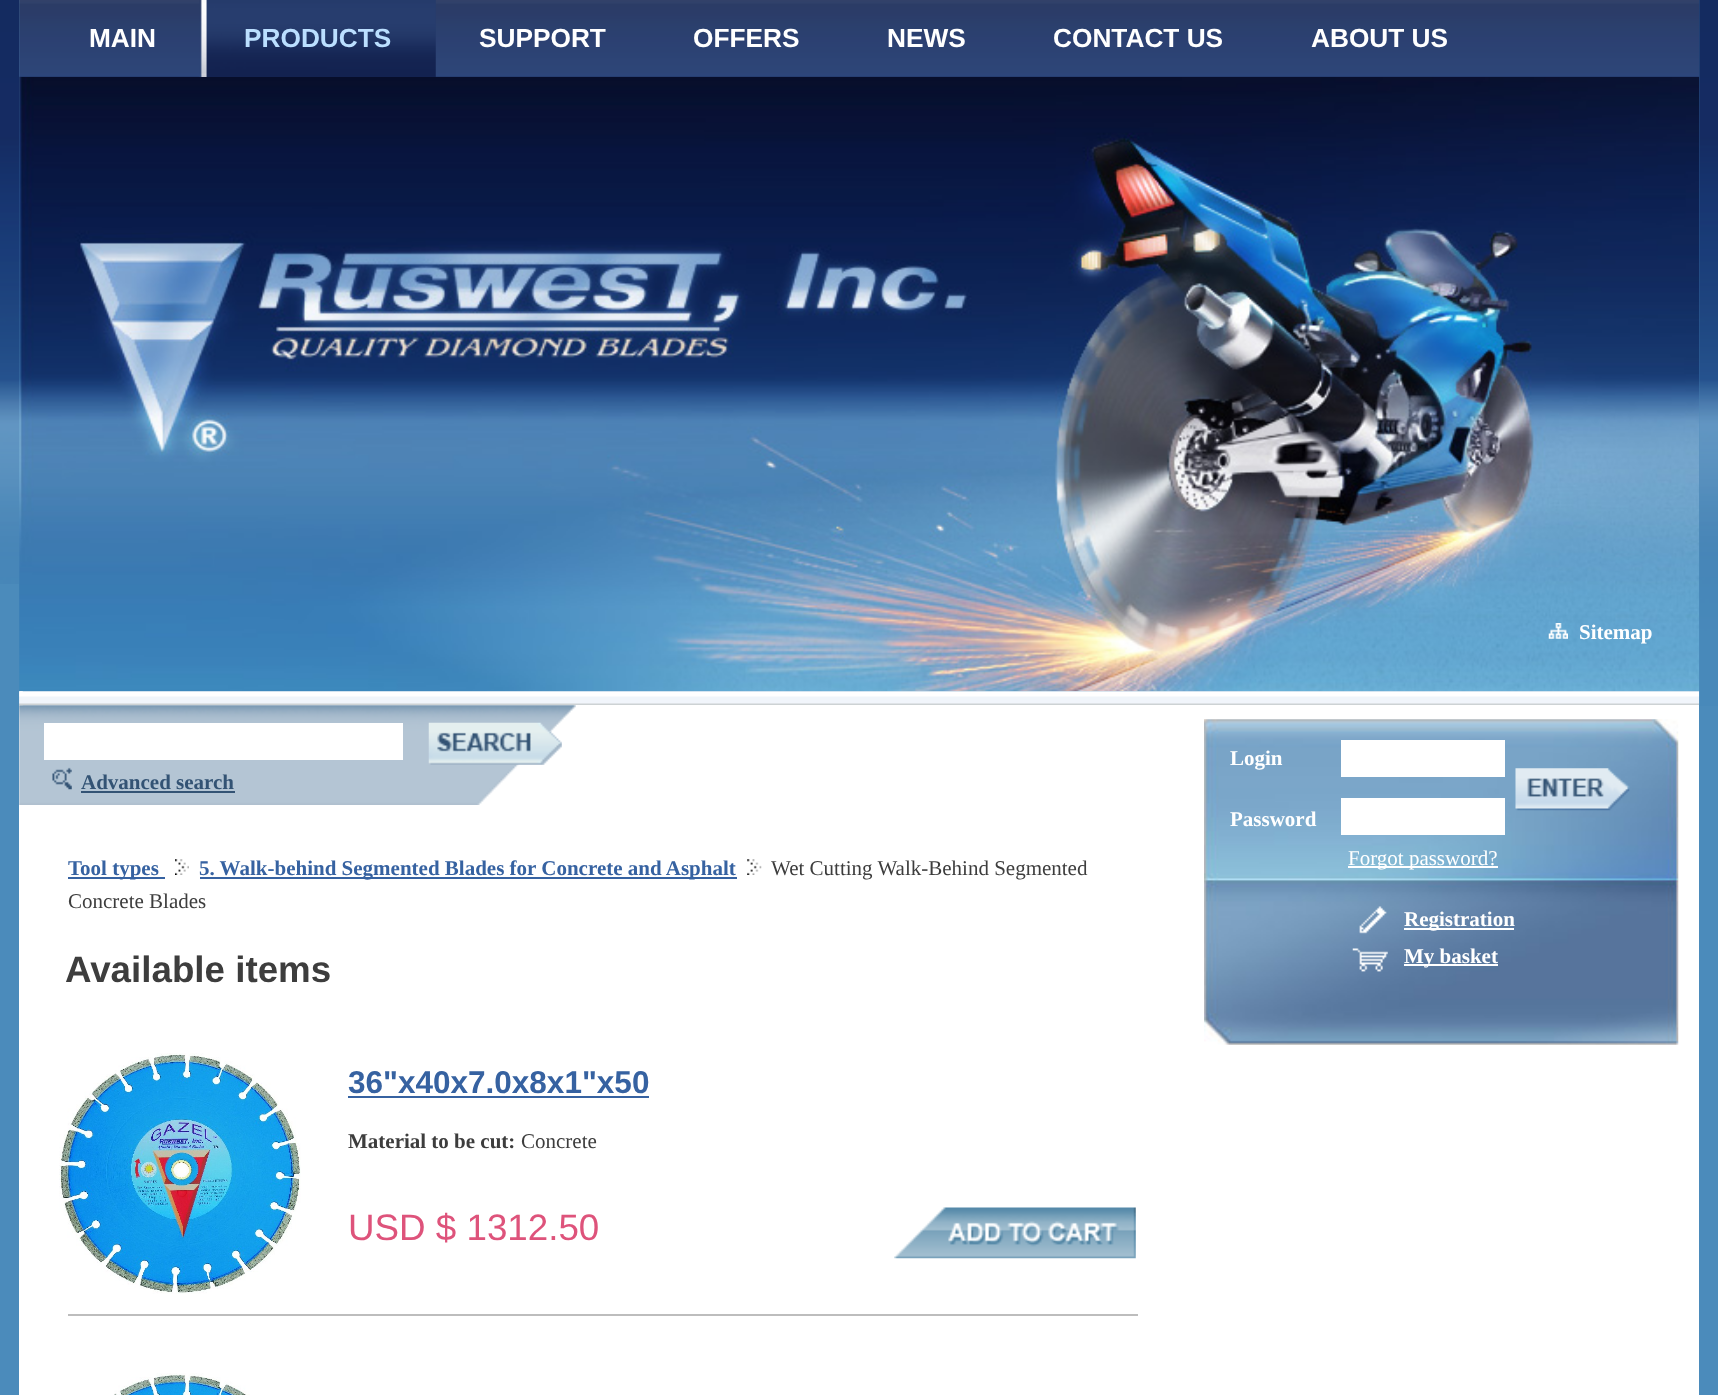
(async () => {
    const canvas = document.querySelector("canvas");
    canvas.width = 1718;
    canvas.height = 1395;
    const context = canvas.getContext("2d");
    context.miterLimit = 4;
    context.fontKerning = "normal";
    function write(s, x, y, font, color) {
        context.font = font;
        context.fillStyle = color;
        context.fillText(s, x, y);
    }
    function block(x, y, w, h, color) {
        context.fillStyle = color;
        context.fillRect(x, y, w, h);
    }
    async function photo(src, x, y, w, h) {
        const img = new Image();
        img.src = src;
        await img.decode();
        context.drawImage(img, x, y, w, h);
    }

    block(0, 0, 1718, 1395, "rgb(75, 139, 187)");
    await photo("media/1.png", 0, 0, 20, 584);
    await photo("media/2.png", 19, 0, 1681, 77);
    write("MAIN", 89, 47, "bold 26.25px Liberation Sans", "rgb(255, 255, 255)");
    await photo("media/3.png", 199, 0, 237, 77);
    write("PRODUCTS", 244, 47, "bold 26.25px Liberation Sans", "rgb(187, 223, 255)");
    write("SUPPORT", 479, 47, "bold 26.25px Liberation Sans", "rgb(255, 255, 255)");
    write("OFFERS", 693, 47, "bold 26.25px Liberation Sans", "rgb(255, 255, 255)");
    write("NEWS", 887, 47, "bold 26.25px Liberation Sans", "rgb(255, 255, 255)");
    write("CONTACT US", 1053, 47, "bold 26.25px Liberation Sans", "rgb(255, 255, 255)");
    write("ABOUT US", 1311, 47, "bold 26.25px Liberation Sans", "rgb(255, 255, 255)");
    await photo("media/4.png", 19, 77, 1681, 615);
    await photo("media/5.png", 1548, 623, 20, 16);
    write("Sitemap", 1579, 639, "bold 21px Liberation Serif", "rgb(255, 255, 255)");
    await photo("media/6.png", 19, 691, 1681, 15);
    block(19, 705, 1680, 690, "rgb(255, 255, 255)");
    await photo("media/8.png", 19, 705, 557, 100);
    await photo("media/7.png", 19, 691, 4, 15);
    block(44, 723, 359, 37, "rgb(255, 255, 255)");
    await photo("media/9.png", 428, 722, 134, 43);
    await photo("media/10.png", 52, 767, 20, 23);
    write("Advanced search", 81, 789, "bold 21px Liberation Serif", "rgb(51, 83, 116)");
    block(81, 791, 154, 2, "rgb(51, 83, 116)");
    block(68, 877, 97, 2, "rgb(54, 98, 161)");
    write("Tool types", 68, 875, "bold 21px Liberation Serif", "rgb(54, 98, 161)");
    await photo("media/11.png", 175, 859, 14, 16);
    block(200, 877, 537, 2, "rgb(54, 98, 161)");
    write("5. Walk-behind Segmented Blades for Concrete and Asphalt", 199, 875, "bold 21px Liberation Serif", "rgb(54, 98, 161)");
    await photo("media/12.png", 747, 859, 15, 16);
    write("Wet Cutting Walk-Behind Segmented", 771, 875, "21px Liberation Serif", "rgb(61, 61, 61)");
    write("Concrete Blades", 68, 908, "21px Liberation Serif", "rgb(61, 61, 61)");
    write("Available items", 65, 982, "bold 36.75px Liberation Sans", "rgb(61, 61, 61)");
    await photo("media/13.png", 59, 1053, 242, 241);
    write("36\"x40x7.0x8x1\"x50", 348, 1093, "bold 31.5px Liberation Sans", "rgb(54, 98, 161)");
    block(348, 1096, 301, 2, "rgb(54, 98, 161)");
    write("Material to be cut:", 348, 1148, "bold 21px Liberation Serif", "rgb(61, 61, 61)");
    write("Concrete", 521, 1148, "21px Liberation Serif", "rgb(61, 61, 61)");
    write("USD $ 1312.50", 348, 1240, "36.75px Liberation Sans", "rgb(222, 83, 123)");
    await photo("media/14.png", 894, 1207, 242, 52);
    block(68, 1314, 1070, 2, "rgb(189, 189, 189)");
    await photo("media/15.png", 114, 1373, 136, 22);
    await photo("media/16.png", 1204, 719, 475, 326);
    write("Login", 1230, 765, "bold 21px Liberation Serif", "rgb(255, 255, 255)");
    write("Password", 1230, 826, "bold 21px Liberation Serif", "rgb(255, 255, 255)");
    await photo("media/17.png", 1515, 768, 115, 43);
    block(1341, 740, 164, 37, "rgb(255, 255, 255)");
    block(1341, 798, 164, 37, "rgb(255, 255, 255)");
    block(1348, 866, 150, 2, "rgb(255, 255, 255)");
    write("Forgot password?", 1348, 865, "21px Liberation Serif", "rgb(255, 255, 255)");
    await photo("media/18.png", 1359, 906, 28, 28);
    block(1404, 928, 110, 2, "rgb(255, 255, 255)");
    write("Registration", 1404, 926, "bold 21px Liberation Serif", "rgb(255, 255, 255)");
    await photo("media/19.png", 1352, 948, 36, 24);
    block(1404, 964, 94, 2, "rgb(255, 255, 255)");
    write("My basket", 1404, 963, "bold 21px Liberation Serif", "rgb(255, 255, 255)");
    await photo("media/20.png", 1699, 0, 19, 706);
})();
